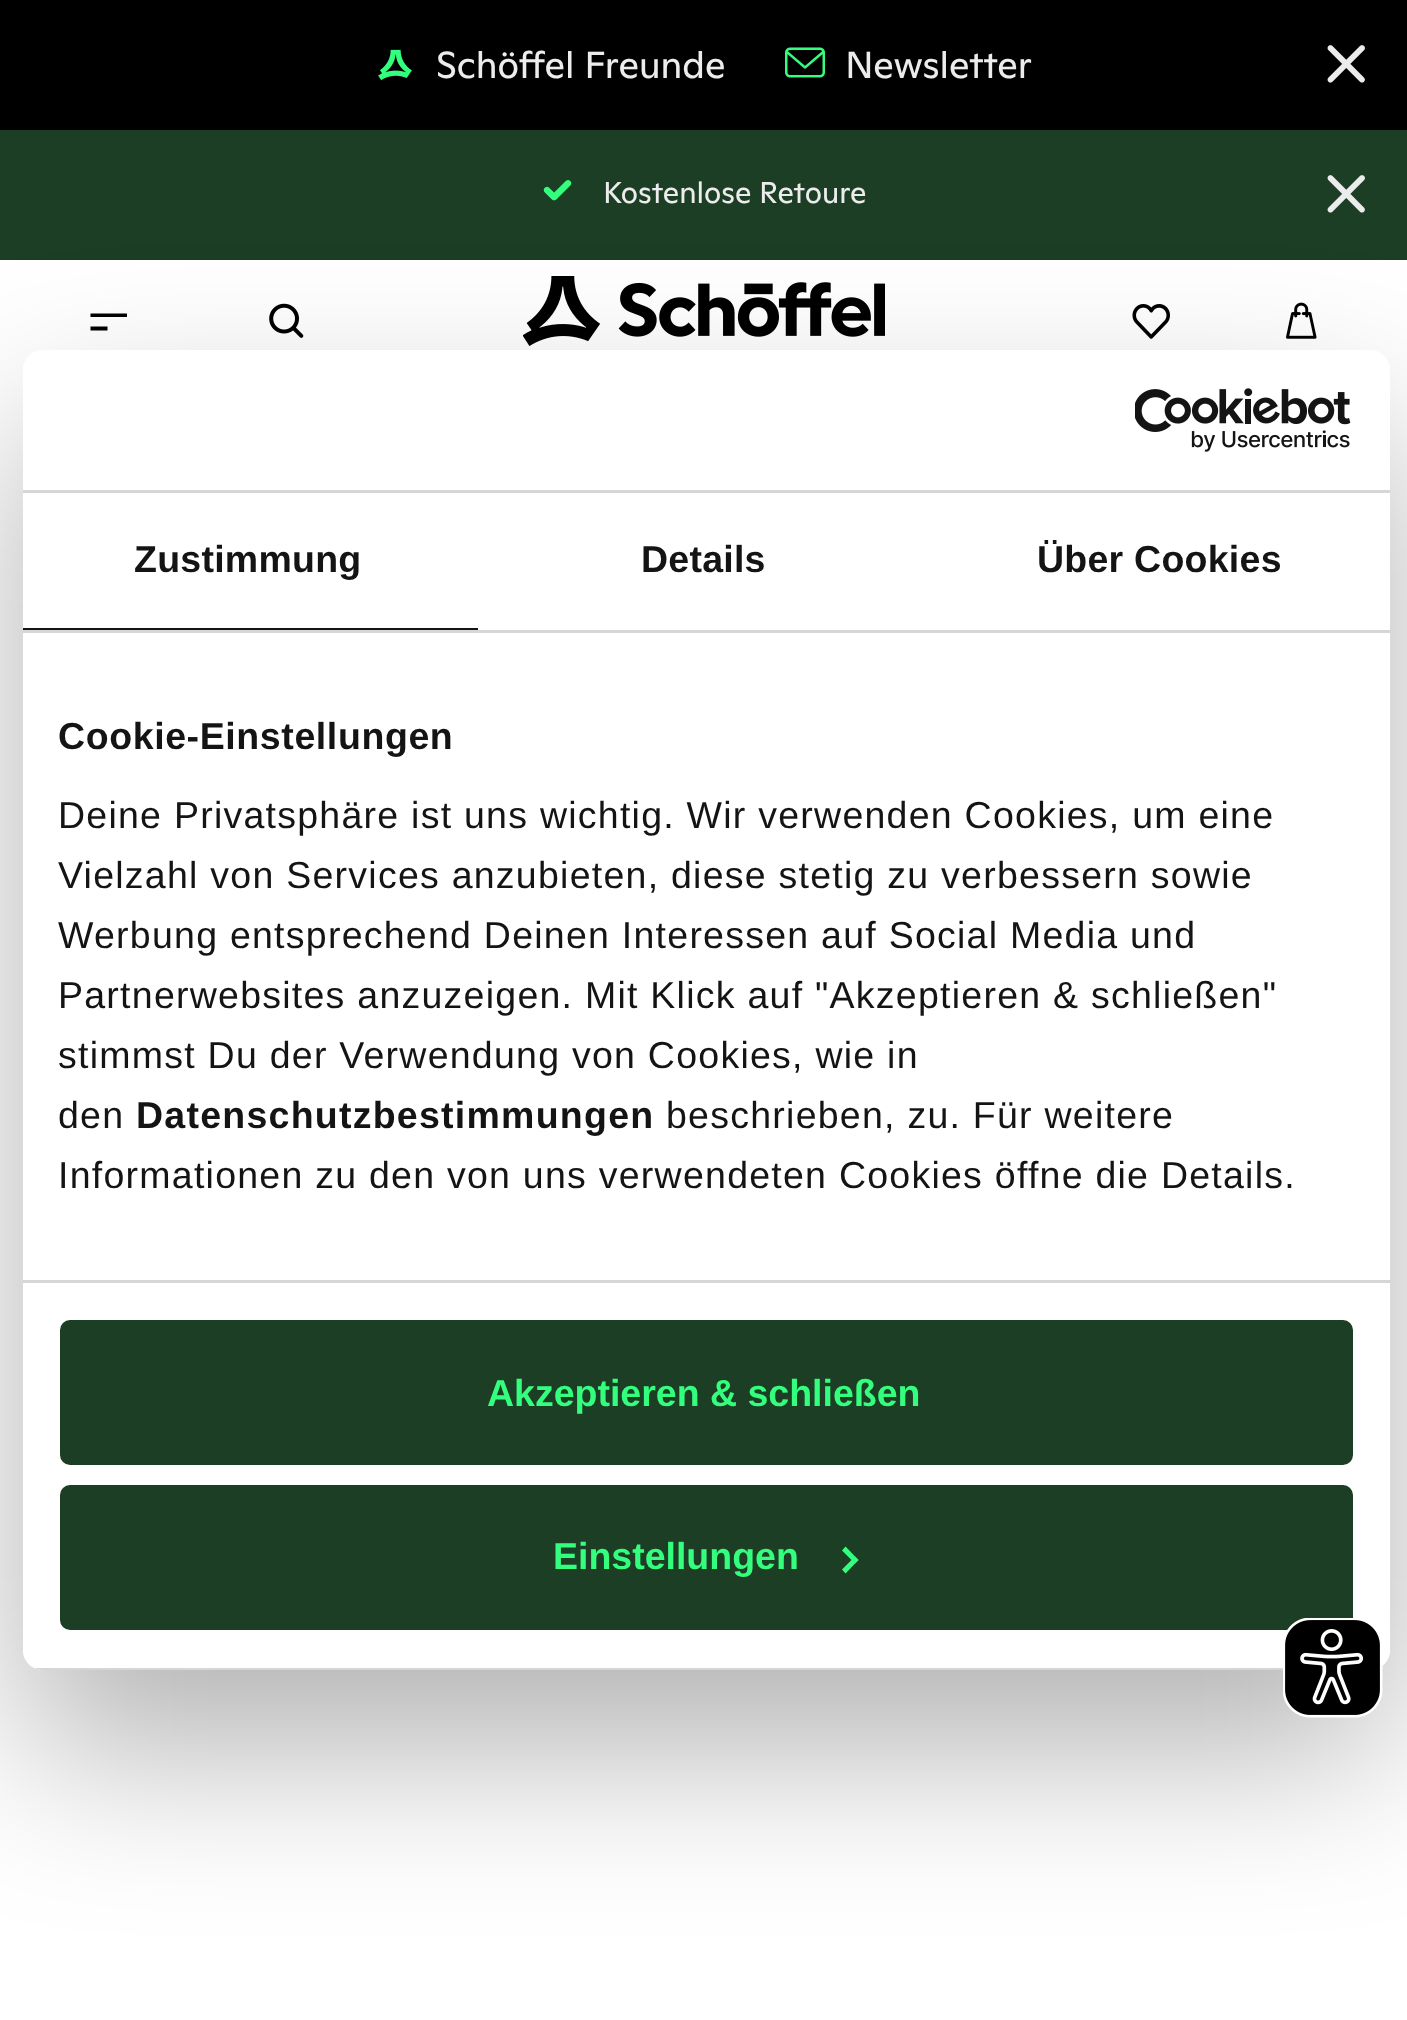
(async () => {
    const canvas = document.querySelector("canvas");
    canvas.width = 1407;
    canvas.height = 2020;
    const context = canvas.getContext("2d");
    context.miterLimit = 4;
    context.fontKerning = "normal";
    function write(s, x, y, font, color) {
        context.font = font;
        context.fillStyle = color;
        context.fillText(s, x, y);
    }
    function block(x, y, w, h, color) {
        context.fillStyle = color;
        context.fillRect(x, y, w, h);
    }
    function card(x, y, w, h, r, color) {
        context.fillStyle = color;
        context.beginPath();
        context.roundRect(x, y, w, h, r);
        context.fill();
    }
    async function photo(src, x, y, w, h) {
        const img = new Image();
        img.src = src;
        await img.decode();
        context.drawImage(img, x, y, w, h);
    }

    block(0, 0, 1407, 2020, "rgb(255, 255, 255)");
    block(0, 0, 1407, 130, "rgb(0, 0, 0)");
    await photo("media/1.png", 378, 49, 34, 31);
    write("Schöffel Freunde", 436, 78, "37.5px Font", "rgb(236, 236, 237)");
    await photo("media/2.png", 785, 47, 40, 31);
    write("Newsletter", 845, 78, "37.5px Font", "rgb(236, 236, 237)");
    await photo("media/3.png", 1327, 45, 38, 38);
    block(0, 130, 1407, 130, "rgb(28, 62, 36)");
    await photo("media/4.png", 543, 180, 29, 21);
    write("Kostenlose Retoure", 603, 203, "30px Font", "rgb(236, 236, 237)");
    await photo("media/5.png", 1327, 175, 38, 38);
    context.fillStyle = "rgb(0, 0, 0)";
    context.beginPath();
    context.moveTo(90.5, 317);
    context.lineTo(127, 317);
    context.lineTo(127, 313.5);
    context.lineTo(90.5, 313.5);
    context.closePath();
    context.moveTo(90.5, 330.5);
    context.lineTo(107.5, 330.5);
    context.lineTo(107.5, 326.5);
    context.lineTo(90.5, 326.5);
    context.closePath();
    context.fill();
    await photo("media/6.png", 269, 303, 35, 35);
    await photo("media/7.png", 523, 276, 362, 70);
    await photo("media/8.png", 1132, 304, 38, 35);
    await photo("media/9.png", 1286, 302, 31, 37);
    context.save();
    context.beginPath();
    context.moveTo(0, 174);
    context.lineTo(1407, 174);
    context.lineTo(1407, 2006);
    context.lineTo(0, 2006);
    context.closePath();
    context.moveTo(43, 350);
    context.lineTo(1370, 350);
    context.bezierCurveTo(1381, 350, 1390, 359, 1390, 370);
    context.lineTo(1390, 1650);
    context.bezierCurveTo(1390, 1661, 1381, 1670, 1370, 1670);
    context.lineTo(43, 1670);
    context.bezierCurveTo(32, 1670, 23, 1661, 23, 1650);
    context.lineTo(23, 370);
    context.bezierCurveTo(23, 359, 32, 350, 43, 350);
    context.closePath();
    context.clip("evenodd");
    context.fillStyle = "rgba(0, 0, 0, 0.3)";
    context.filter = "blur(85px)";
    context.beginPath();
    context.roundRect(23, 430, 1367, 1320, 20);
    context.fill();
    context.filter = "none";
    context.restore();
    card(23, 350, 1367, 1320, 20, "rgb(255, 255, 255)");
    block(23, 490, 1367, 3, "rgb(214, 214, 214)");
    await photo("media/10.png", 1135, 388, 216, 64);
    block(23, 630, 1367, 3, "rgb(214, 214, 214)");
    block(23, 628, 455, 2, "rgb(20, 20, 20)");
    context.letterSpacing = "0.25px";
    write("Zustimmung", 134, 572, "bold 37.5px Liberation Sans", "rgb(20, 20, 20)");
    write("Details", 641, 572, "bold 37.5px Liberation Sans", "rgb(20, 20, 20)");
    write("Über Cookies", 1037, 572, "bold 37.5px Liberation Sans", "rgb(20, 20, 20)");
    block(23, 1280, 1367, 3, "rgb(214, 214, 214)");
    context.letterSpacing = "0.6px";
    write("Cookie-Einstellungen", 58, 749, "bold 37.5px Liberation Sans", "rgb(20, 20, 20)");
    context.letterSpacing = "1.25px";
    write("Deine Privatsphäre ist uns wichtig. Wir verwenden Cookies, um eine", 58, 828, "37.5px Liberation Sans", "rgb(20, 20, 20)");
    write("Vielzahl von Services anzubieten, diese stetig zu verbessern sowie", 58, 888, "37.5px Liberation Sans", "rgb(20, 20, 20)");
    write("Werbung entsprechend Deinen Interessen auf Social Media und", 58, 948, "37.5px Liberation Sans", "rgb(20, 20, 20)");
    write("Partnerwebsites anzuzeigen. Mit Klick auf \"Akzeptieren & schließen\"", 58, 1008, "37.5px Liberation Sans", "rgb(20, 20, 20)");
    write("stimmst Du der Verwendung von Cookies, wie in", 58, 1068, "37.5px Liberation Sans", "rgb(20, 20, 20)");
    write("den", 58, 1128, "37.5px Liberation Sans", "rgb(20, 20, 20)");
    write("Datenschutzbestimmungen", 136, 1128, "bold 37.5px Liberation Sans", "rgb(20, 20, 20)");
    write("beschrieben, zu. Für weitere", 666, 1128, "37.5px Liberation Sans", "rgb(20, 20, 20)");
    write("Informationen zu den von uns verwendeten Cookies öffne die Details.", 58, 1188, "37.5px Liberation Sans", "rgb(20, 20, 20)");
    context.save();
    context.beginPath();
    context.roundRect(23, 350, 1367, 1320, 20);
    context.clip();
    block(34, 1668, 1249, 2, "rgb(214, 214, 214)");
    context.restore();
    context.fillStyle = "rgb(28, 62, 36)";
    context.beginPath();
    context.roundRect(62.5, 1322.5, 1288, 140, 7.5);
    context.fill();
    context.strokeStyle = "rgb(28, 62, 36)";
    context.lineWidth = 5;
    context.stroke();
    context.letterSpacing = "0px";
    write("Akzeptieren & schließen", 487, 1406, "bold 37.5px Liberation Sans", "rgb(52, 254, 126)");
    context.fillStyle = "rgb(28, 62, 36)";
    context.beginPath();
    context.roundRect(62.5, 1487.5, 1288, 140, 7.5);
    context.fill();
    context.stroke();
    write("Einstellungen", 553, 1569, "bold 37.5px Liberation Sans", "rgb(52, 254, 126)");
    context.beginPath();
    context.moveTo(845.5, 1546.5);
    context.lineTo(858.5, 1560);
    context.lineTo(855, 1563.5);
    context.lineTo(842, 1550.5);
    context.closePath();
    context.fill();
    context.beginPath();
    context.moveTo(855, 1556.5);
    context.lineTo(858.5, 1560);
    context.lineTo(845.5, 1573.5);
    context.lineTo(842, 1569.5);
    context.closePath();
    context.fill();
    await photo("media/11.png", 1283, 1618, 100, 100);
})();
